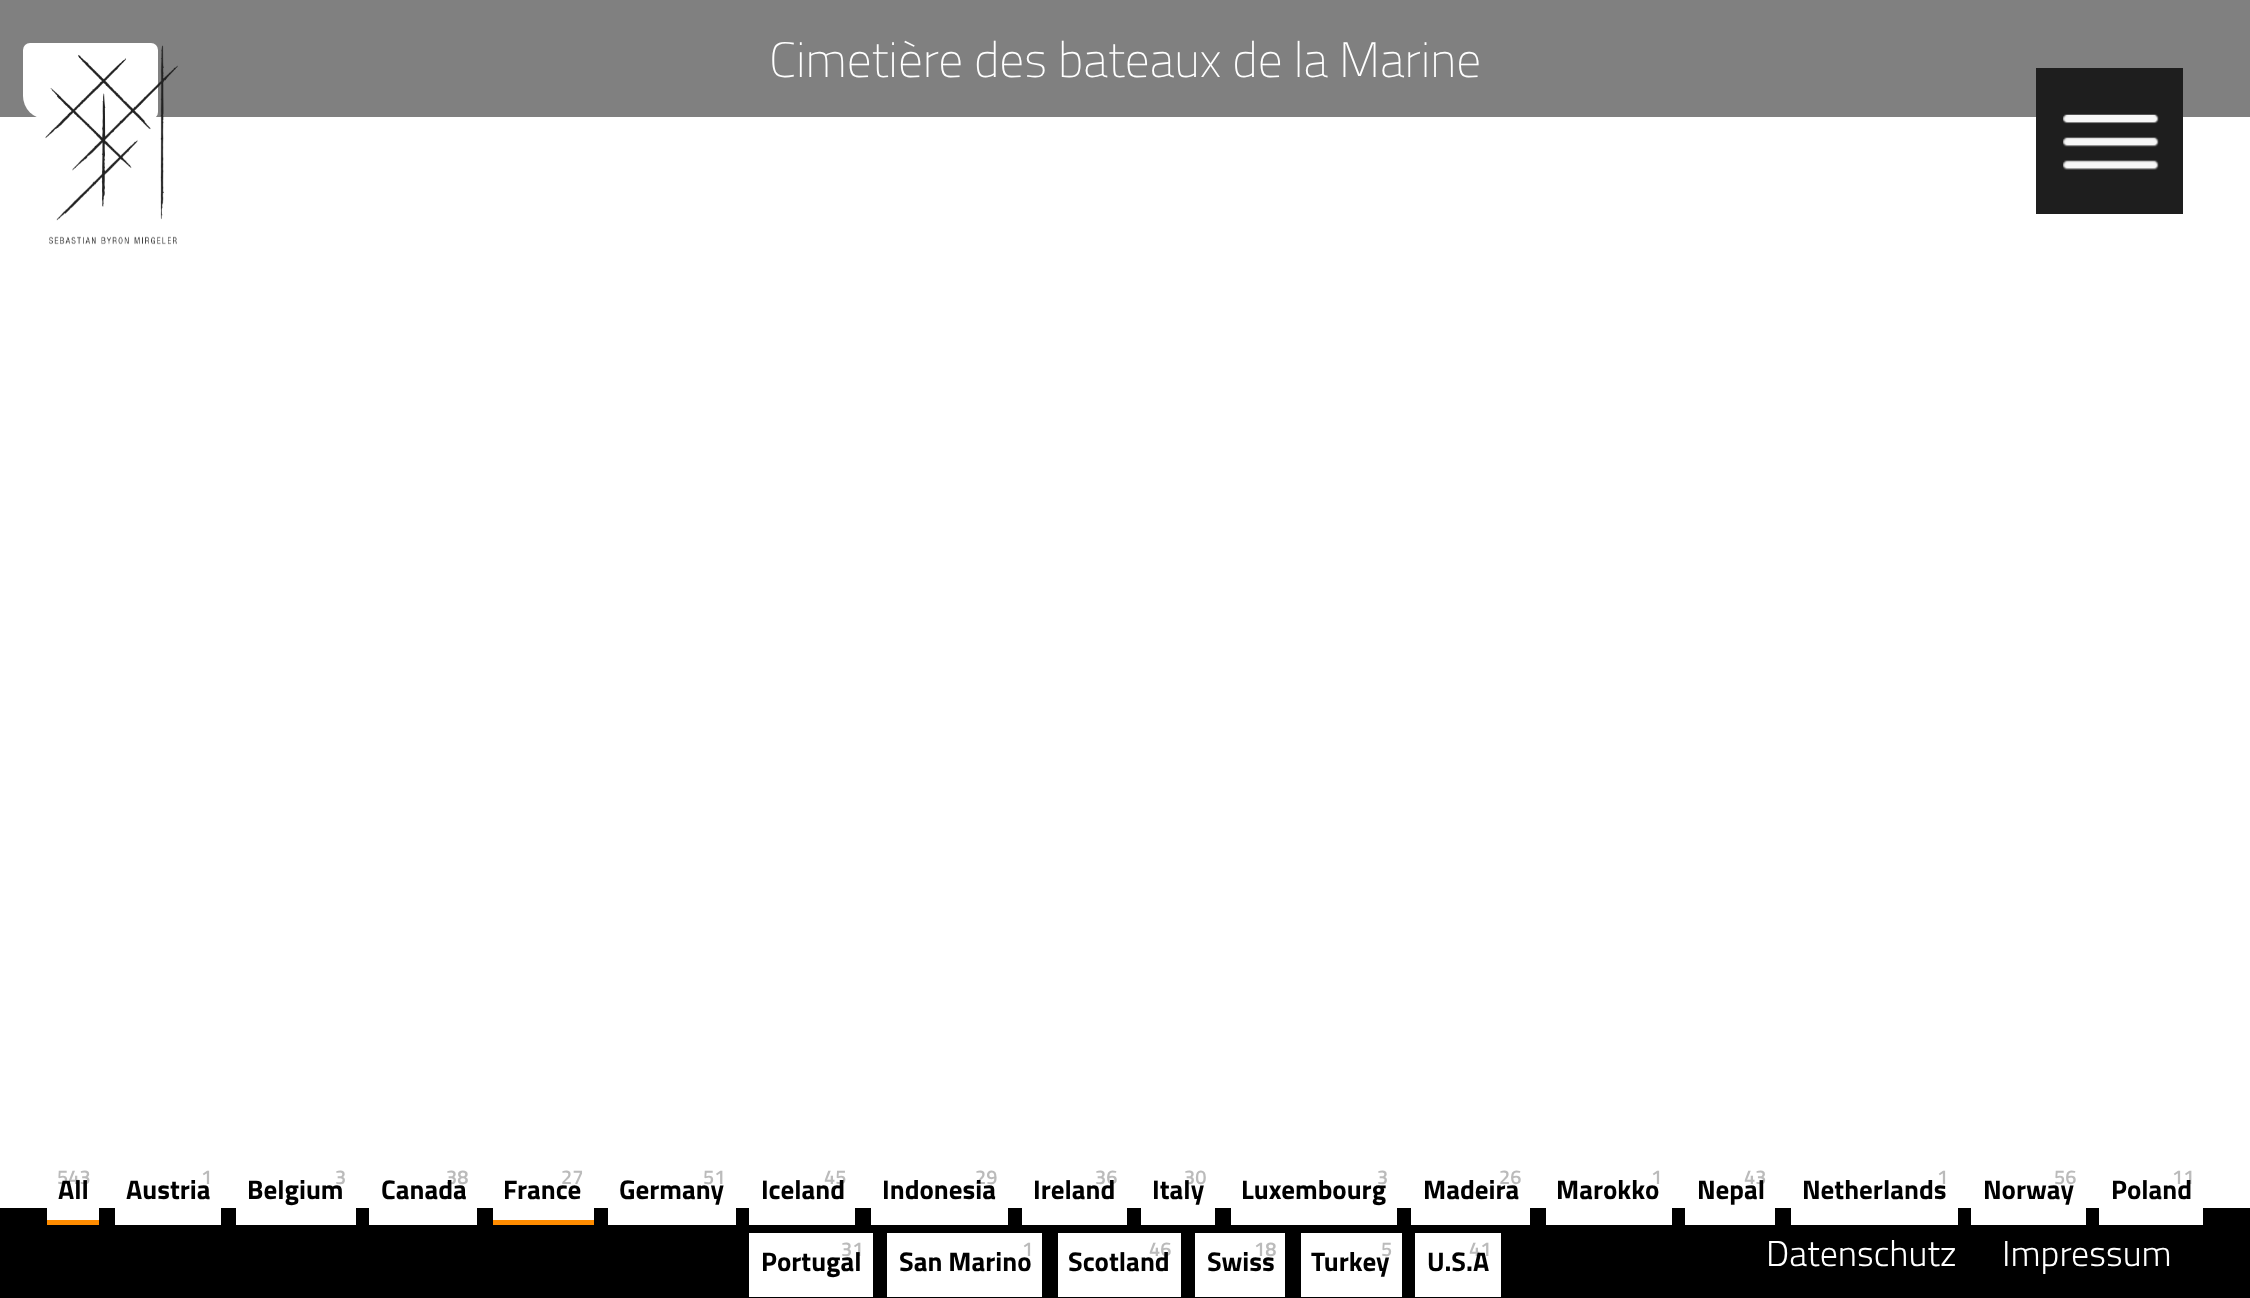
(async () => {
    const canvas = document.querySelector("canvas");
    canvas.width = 2250;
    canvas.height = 1298;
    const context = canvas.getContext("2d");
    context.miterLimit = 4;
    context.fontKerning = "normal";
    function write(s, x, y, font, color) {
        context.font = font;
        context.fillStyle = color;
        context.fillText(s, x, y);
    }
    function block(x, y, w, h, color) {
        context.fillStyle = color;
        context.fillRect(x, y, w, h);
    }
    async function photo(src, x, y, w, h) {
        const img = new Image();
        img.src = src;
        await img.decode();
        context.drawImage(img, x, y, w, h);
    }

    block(0, 0, 2250, 1298, "rgb(255, 255, 255)");
    block(0, 0, 2250, 117, "rgb(128, 128, 128)");
    context.fillStyle = "rgb(255, 255, 255)";
    context.beginPath();
    context.roundRect(23, 43, 135, 76, [7, 7, 7, 23]);
    context.fill();
    write("Cimetière des bateaux de la Marine", 769, 77, "300 49.5px 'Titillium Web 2'", "rgb(255, 255, 255)");
    block(0, 1208, 2250, 90, "rgb(0, 0, 0)");
    block(47, 1208, 52, 12, "rgb(255, 255, 255)");
    write("543", 57, 1184, "600 20px Titillium Web", "rgb(187, 187, 187)");
    write("All", 58, 1199, "bold 27px Titillium Web", "rgb(0, 0, 0)");
    block(47, 1220, 52, 5, "rgb(255, 140, 0)");
    block(115, 1208, 106, 17, "rgb(255, 255, 255)");
    write("1", 201, 1184, "600 20px Titillium Web", "rgb(187, 187, 187)");
    write("Austria", 126, 1199, "bold 27px Titillium Web", "rgb(0, 0, 0)");
    block(236, 1208, 120, 17, "rgb(255, 255, 255)");
    write("3", 335, 1184, "600 20px Titillium Web", "rgb(187, 187, 187)");
    write("Belgium", 247, 1199, "bold 27px Titillium Web", "rgb(0, 0, 0)");
    block(369, 1208, 108, 17, "rgb(255, 255, 255)");
    write("38", 446, 1184, "600 20px Titillium Web", "rgb(187, 187, 187)");
    write("Canada", 381, 1199, "bold 27px Titillium Web", "rgb(0, 0, 0)");
    block(493, 1208, 101, 12, "rgb(255, 255, 255)");
    write("27", 561, 1184, "600 20px Titillium Web", "rgb(187, 187, 187)");
    write("France", 503, 1199, "bold 27px Titillium Web", "rgb(0, 0, 0)");
    block(493, 1220, 101, 5, "rgb(255, 140, 0)");
    block(608, 1208, 128, 17, "rgb(255, 255, 255)");
    write("51", 703, 1184, "600 20px Titillium Web", "rgb(187, 187, 187)");
    write("Germany", 619, 1199, "bold 27px Titillium Web", "rgb(0, 0, 0)");
    block(749, 1208, 106, 17, "rgb(255, 255, 255)");
    write("45", 824, 1184, "600 20px Titillium Web", "rgb(187, 187, 187)");
    write("Iceland", 761, 1199, "bold 27px Titillium Web", "rgb(0, 0, 0)");
    block(871, 1208, 137, 17, "rgb(255, 255, 255)");
    write("29", 975, 1184, "600 20px Titillium Web", "rgb(187, 187, 187)");
    write("Indonesia", 882, 1199, "bold 27px Titillium Web", "rgb(0, 0, 0)");
    block(1022, 1208, 105, 17, "rgb(255, 255, 255)");
    write("36", 1095, 1184, "600 20px Titillium Web", "rgb(187, 187, 187)");
    write("Ireland", 1033, 1199, "bold 27px Titillium Web", "rgb(0, 0, 0)");
    block(1141, 1208, 74, 17, "rgb(255, 255, 255)");
    write("30", 1184, 1184, "600 20px Titillium Web", "rgb(187, 187, 187)");
    write("Italy", 1152, 1199, "bold 27px Titillium Web", "rgb(0, 0, 0)");
    block(1231, 1208, 166, 17, "rgb(255, 255, 255)");
    write("3", 1377, 1184, "600 20px Titillium Web", "rgb(187, 187, 187)");
    write("Luxembourg", 1241, 1199, "bold 27px Titillium Web", "rgb(0, 0, 0)");
    block(1411, 1208, 119, 17, "rgb(255, 255, 255)");
    write("26", 1499, 1184, "600 20px Titillium Web", "rgb(187, 187, 187)");
    write("Madeira", 1423, 1199, "bold 27px Titillium Web", "rgb(0, 0, 0)");
    block(1546, 1208, 126, 17, "rgb(255, 255, 255)");
    write("1", 1651, 1184, "600 20px Titillium Web", "rgb(187, 187, 187)");
    write("Marokko", 1556, 1199, "bold 27px Titillium Web", "rgb(0, 0, 0)");
    block(1685, 1208, 90, 17, "rgb(255, 255, 255)");
    write("43", 1744, 1184, "600 20px Titillium Web", "rgb(187, 187, 187)");
    write("Nepal", 1697, 1199, "bold 27px Titillium Web", "rgb(0, 0, 0)");
    block(1791, 1208, 167, 17, "rgb(255, 255, 255)");
    write("1", 1937, 1184, "600 20px Titillium Web", "rgb(187, 187, 187)");
    write("Netherlands", 1802, 1199, "bold 27px Titillium Web", "rgb(0, 0, 0)");
    block(1971, 1208, 115, 17, "rgb(255, 255, 255)");
    write("56", 2054, 1184, "600 20px Titillium Web", "rgb(187, 187, 187)");
    write("Norway", 1983, 1199, "bold 27px Titillium Web", "rgb(0, 0, 0)");
    block(2099, 1208, 104, 17, "rgb(255, 255, 255)");
    write("11", 2172, 1184, "600 20px Titillium Web", "rgb(187, 187, 187)");
    write("Poland", 2111, 1199, "bold 27px Titillium Web", "rgb(0, 0, 0)");
    block(749, 1233, 124, 64, "rgb(255, 255, 255)");
    write("31", 841, 1256, "600 20px Titillium Web", "rgb(187, 187, 187)");
    write("Portugal", 761, 1271, "bold 27px Titillium Web", "rgb(0, 0, 0)");
    block(887, 1233, 155, 64, "rgb(255, 255, 255)");
    write("1", 1022, 1256, "600 20px Titillium Web", "rgb(187, 187, 187)");
    write("San Marino", 899, 1271, "bold 27px Titillium Web", "rgb(0, 0, 0)");
    block(1058, 1233, 123, 64, "rgb(255, 255, 255)");
    write("46", 1149, 1256, "600 20px Titillium Web", "rgb(187, 187, 187)");
    write("Scotland", 1068, 1271, "bold 27px Titillium Web", "rgb(0, 0, 0)");
    block(1195, 1233, 90, 64, "rgb(255, 255, 255)");
    write("18", 1254, 1256, "600 20px Titillium Web", "rgb(187, 187, 187)");
    write("Swiss", 1207, 1271, "bold 27px Titillium Web", "rgb(0, 0, 0)");
    block(1301, 1233, 101, 64, "rgb(255, 255, 255)");
    write("5", 1381, 1256, "600 20px Titillium Web", "rgb(187, 187, 187)");
    write("Turkey", 1311, 1271, "bold 27px Titillium Web", "rgb(0, 0, 0)");
    block(1415, 1233, 86, 64, "rgb(255, 255, 255)");
    write("41", 1469, 1256, "600 20px Titillium Web", "rgb(187, 187, 187)");
    write("U.S.A", 1427, 1271, "bold 27px Titillium Web", "rgb(0, 0, 0)");
    await photo("media/1.png", 45, 45, 133, 200);
    block(2036, 68, 147, 146, "rgb(30, 30, 30)");
    await photo("media/2.png", 2063, 114, 96, 56);
    write("Datenschutz", 1766, 1266, "300 36px Titillium Web", "rgb(255, 255, 255)");
    write("Impressum", 2002, 1266, "300 36px Titillium Web", "rgb(255, 255, 255)");
})();
